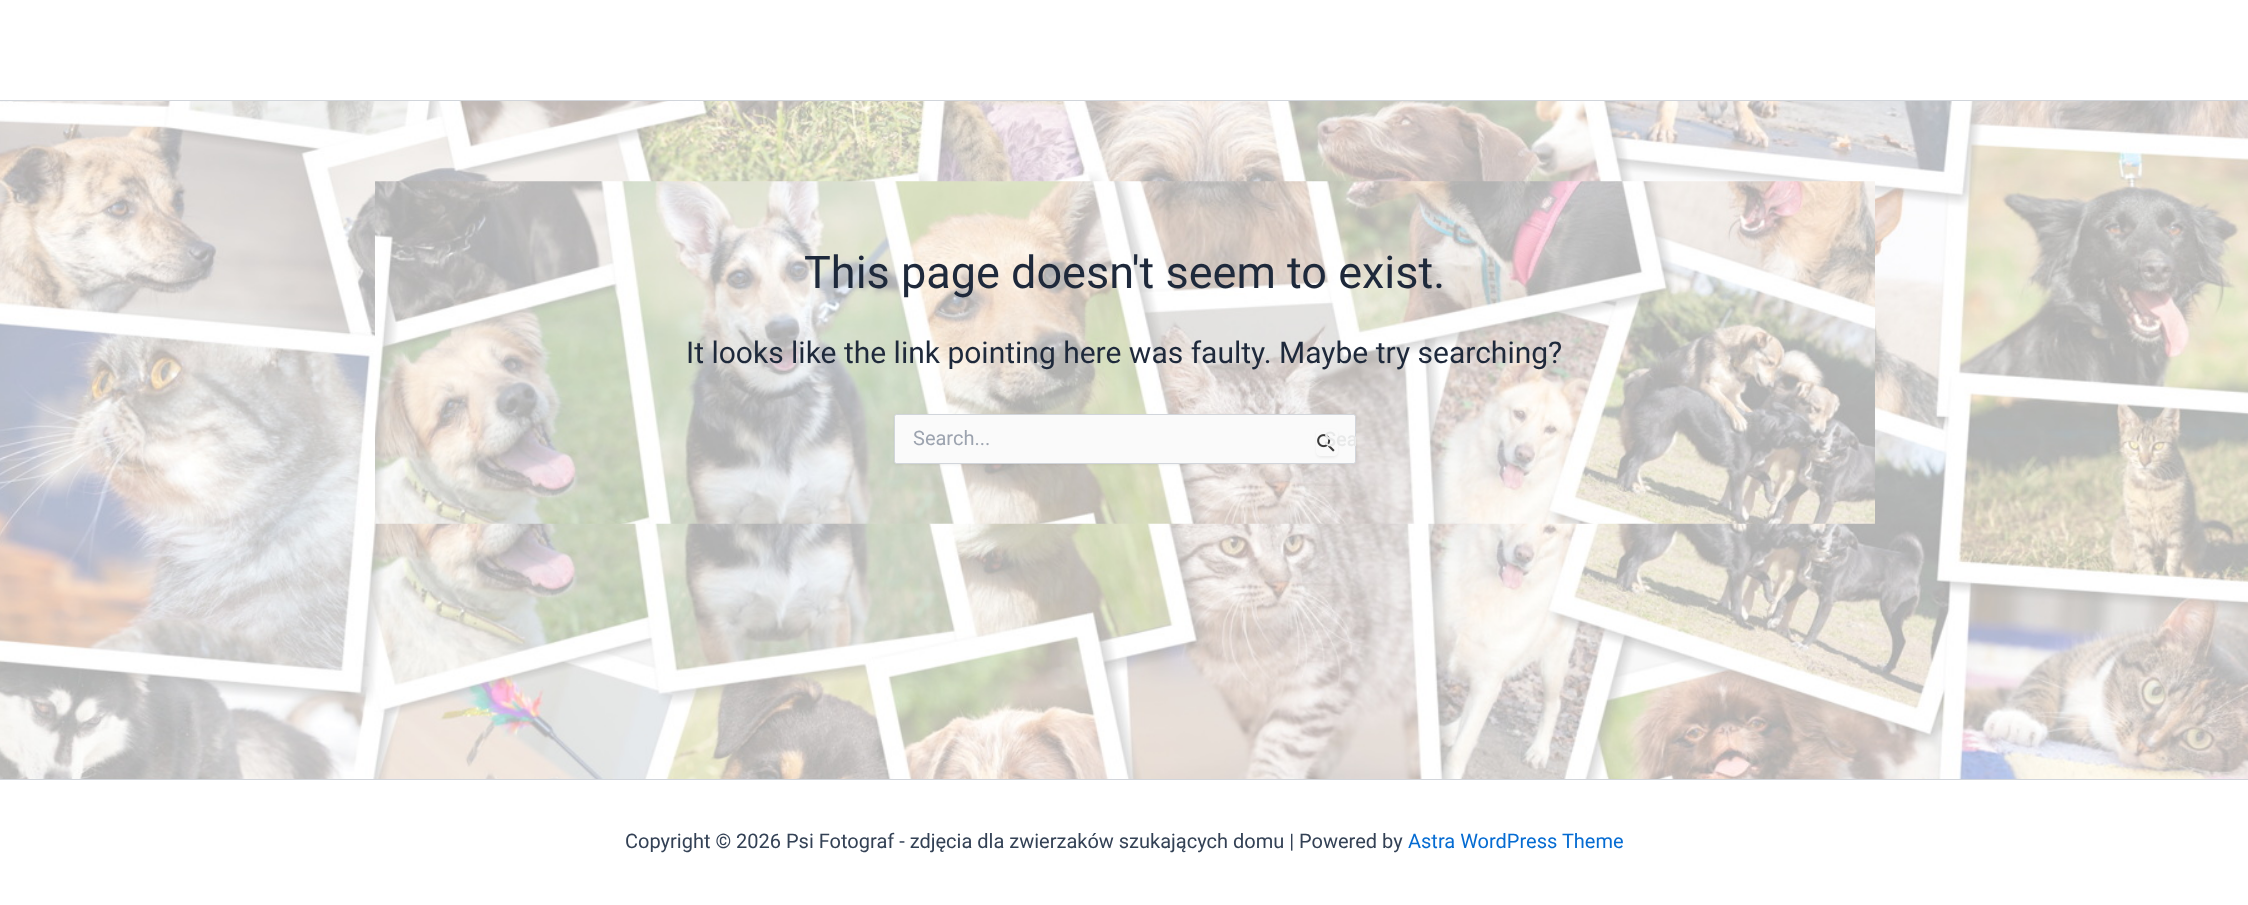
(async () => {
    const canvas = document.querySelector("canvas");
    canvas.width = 2248;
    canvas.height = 905;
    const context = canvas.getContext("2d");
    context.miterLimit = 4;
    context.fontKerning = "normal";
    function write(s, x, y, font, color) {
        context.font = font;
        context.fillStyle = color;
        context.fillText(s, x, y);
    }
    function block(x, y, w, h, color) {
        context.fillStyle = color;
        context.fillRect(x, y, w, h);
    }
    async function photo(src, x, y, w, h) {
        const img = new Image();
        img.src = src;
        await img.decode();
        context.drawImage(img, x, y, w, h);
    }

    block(0, 0, 2248, 905, "rgb(255, 255, 255)");
    await photo("media/1.png", 0, 101, 2248, 678);
    block(0, 100, 2248, 1, "rgb(209, 213, 219)");
    await photo("media/2.png", 375, 181, 1500, 343);
    write("This page doesn't seem to exist.", 804, 288, "45px Roboto", "rgb(30, 41, 59)");
    write("It looks like the link pointing here was faulty. Maybe try searching?", 686, 363, "30px Roboto", "rgb(30, 41, 59)");
    context.fillStyle = "rgba(0, 0, 0, 0.05)";
    context.filter = "blur(1px)";
    context.beginPath();
    context.roundRect(894, 415, 462, 50, 2.5);
    context.fill();
    context.filter = "none";
    context.fillStyle = "rgb(250, 250, 250)";
    context.beginPath();
    context.roundRect(894.5, 414.5, 461, 49, 2);
    context.fill();
    context.strokeStyle = "rgb(209, 213, 219)";
    context.stroke();
    write("Search...", 913, 445, "20px Roboto", "rgb(156, 163, 175)");
    context.save();
    context.beginPath();
    context.moveTo(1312, 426);
    context.lineTo(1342, 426);
    context.lineTo(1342, 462);
    context.lineTo(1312, 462);
    context.closePath();
    context.moveTo(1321, 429);
    context.lineTo(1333, 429);
    context.bezierCurveTo(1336, 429, 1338, 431, 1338, 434);
    context.lineTo(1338, 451);
    context.bezierCurveTo(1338, 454, 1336, 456, 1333, 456);
    context.lineTo(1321, 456);
    context.bezierCurveTo(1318, 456, 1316, 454, 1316, 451);
    context.lineTo(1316, 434);
    context.bezierCurveTo(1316, 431, 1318, 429, 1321, 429);
    context.closePath();
    context.clip("evenodd");
    context.fillStyle = "rgba(0, 0, 0, 0.05)";
    context.filter = "blur(1px)";
    context.beginPath();
    context.roundRect(1316, 430, 22, 28, 5);
    context.fill();
    context.filter = "none";
    context.restore();
    await photo("media/3.png", 1317, 434, 18, 18);
    context.save();
    context.beginPath();
    context.roundRect(1300, 414, 56, 52, 2.5);
    context.clip();
    write("Sea", 1324, 446, "500 20px Roboto", "rgb(232, 233, 233)");
    context.restore();
    block(0, 779, 2248, 1, "rgb(209, 213, 219)");
    write("Copyright © 2026 Psi Fotograf - zdjęcia dla zwierzaków szukających domu | Powered by", 625, 848, "20px Roboto", "rgb(51, 65, 85)");
    write("Astra WordPress Theme", 1408, 848, "20px Roboto", "rgb(4, 107, 210)");
})();
